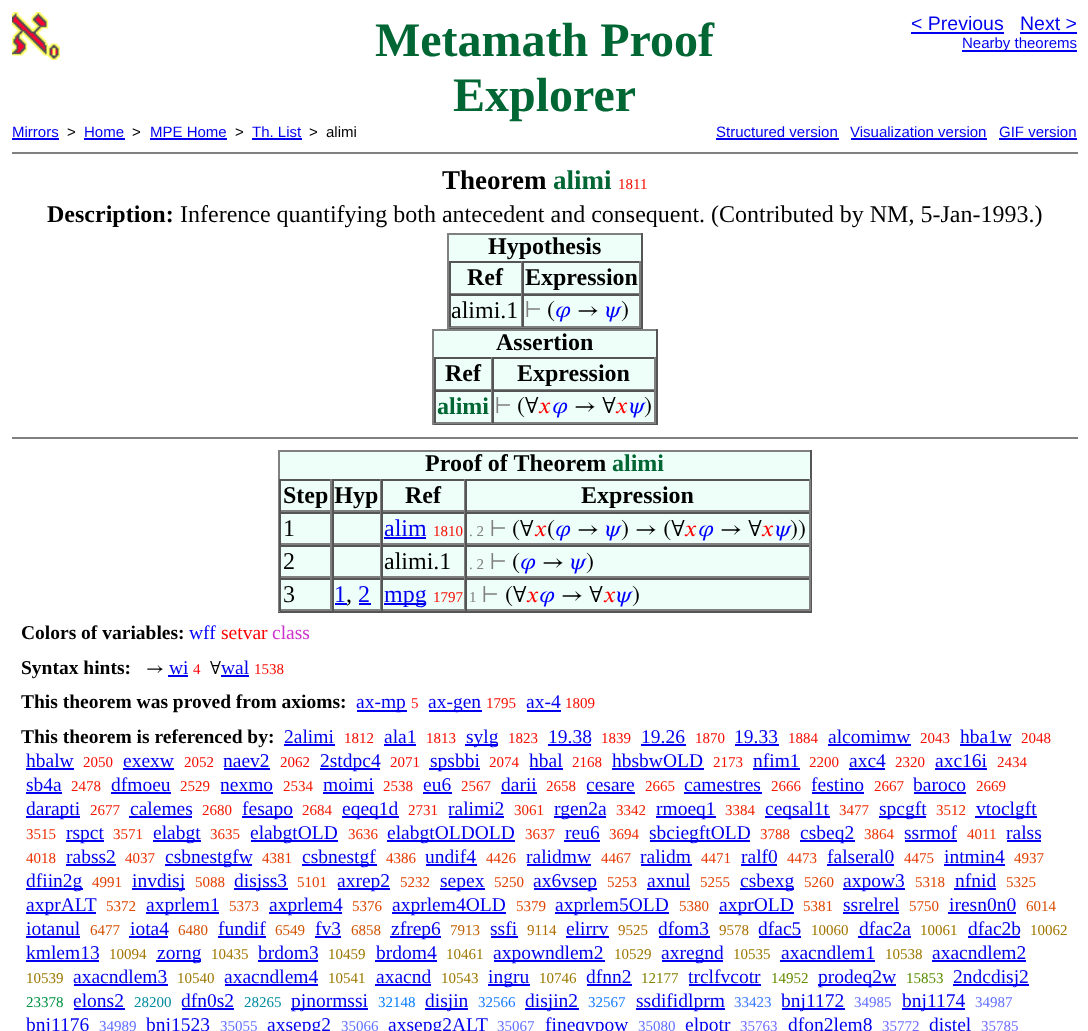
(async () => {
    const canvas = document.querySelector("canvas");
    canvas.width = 1088;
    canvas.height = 1031;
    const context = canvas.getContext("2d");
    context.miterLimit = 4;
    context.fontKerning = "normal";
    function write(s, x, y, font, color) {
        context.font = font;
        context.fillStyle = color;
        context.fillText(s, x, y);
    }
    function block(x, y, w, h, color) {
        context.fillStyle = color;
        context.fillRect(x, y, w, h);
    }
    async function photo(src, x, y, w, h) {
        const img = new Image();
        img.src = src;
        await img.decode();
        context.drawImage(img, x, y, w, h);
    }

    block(0, 0, 1088, 1031, "rgb(255, 255, 255)");
    await photo("media/1.png", 12, 12, 48, 48);
    write("Metamath Proof", 375, 56, "bold 48px Liberation Serif", "rgb(0, 102, 51)");
    write("Explorer", 453, 111, "bold 48px Liberation Serif", "rgb(0, 102, 51)");
    write("< Previous", 911, 30, "19.5px Liberation Sans", "rgb(0, 0, 238)");
    block(911, 32, 93, 2, "rgb(0, 0, 238)");
    write("Next >", 1020, 30, "19.5px Liberation Sans", "rgb(0, 0, 238)");
    block(1020, 32, 57, 2, "rgb(0, 0, 238)");
    block(962, 50, 115, 2, "rgb(0, 0, 238)");
    write("Nearby theorems", 962, 48, "15px Liberation Sans", "rgb(0, 0, 238)");
    write("Mirrors", 12, 137, "15px Liberation Sans", "rgb(0, 0, 238)");
    block(12, 138, 47, 2, "rgb(0, 0, 238)");
    write(">", 67, 137, "15px Liberation Sans", "rgb(0, 0, 0)");
    write("Home", 84, 137, "15px Liberation Sans", "rgb(0, 0, 238)");
    block(84, 138, 41, 2, "rgb(0, 0, 238)");
    write(">", 132, 137, "15px Liberation Sans", "rgb(0, 0, 0)");
    write("MPE Home", 150, 137, "15px Liberation Sans", "rgb(0, 0, 238)");
    block(150, 138, 77, 2, "rgb(0, 0, 238)");
    write(">", 235, 137, "15px Liberation Sans", "rgb(0, 0, 0)");
    write("Th. List", 252, 137, "15px Liberation Sans", "rgb(0, 0, 238)");
    block(252, 138, 50, 2, "rgb(0, 0, 238)");
    write(">", 309, 137, "15px Liberation Sans", "rgb(0, 0, 0)");
    write("alimi", 326, 137, "15px Liberation Sans", "rgb(0, 0, 0)");
    write("Structured version", 716, 137, "15px Liberation Sans", "rgb(0, 0, 238)");
    block(716, 138, 123, 2, "rgb(0, 0, 238)");
    write("Visualization version", 850, 137, "15px Liberation Sans", "rgb(0, 0, 238)");
    block(851, 138, 136, 2, "rgb(0, 0, 238)");
    write("GIF version", 999, 137, "15px Liberation Sans", "rgb(0, 0, 238)");
    block(999, 138, 78, 2, "rgb(0, 0, 238)");
    block(12, 152, 1066, 2, "rgb(128, 128, 128)");
    write("Theorem", 442, 189, "bold 27px Liberation Serif", "rgb(0, 0, 0)");
    write("alimi", 553, 189, "bold 27px Liberation Serif", "rgb(0, 102, 51)");
    write("1811", 618, 189, "15px Liberation Serif", "rgb(246, 12, 0)");
    write("Description:", 47, 222, "bold 24px Liberation Serif", "rgb(0, 0, 0)");
    write("Inference quantifying both antecedent and consequent. (Contributed by NM, 5-Jan-1993.)", 180, 222, "24px Liberation Serif", "rgb(0, 0, 0)");
    block(449, 235, 192, 91, "rgb(238, 255, 250)");
    block(447, 233, 195, 2, "rgb(128, 128, 128)");
    block(641, 233, 2, 96, "rgb(85, 85, 85)");
    block(447, 327, 195, 2, "rgb(85, 85, 85)");
    block(447, 233, 2, 96, "rgb(128, 128, 128)");
    write("Hypothesis", 488, 254, "bold 24px Liberation Serif", "rgb(0, 0, 0)");
    block(449, 261, 192, 2, "rgb(85, 85, 85)");
    block(521, 261, 1, 33, "rgb(128, 128, 128)");
    block(449, 293, 73, 1, "rgb(128, 128, 128)");
    block(449, 261, 2, 33, "rgb(85, 85, 85)");
    write("Ref", 467, 285, "bold 24px Liberation Serif", "rgb(0, 0, 0)");
    block(639, 261, 2, 33, "rgb(128, 128, 128)");
    block(522, 293, 119, 1, "rgb(128, 128, 128)");
    block(522, 261, 2, 33, "rgb(85, 85, 85)");
    write("Expression", 525, 285, "bold 24px Liberation Serif", "rgb(0, 0, 0)");
    block(449, 294, 192, 2, "rgb(85, 85, 85)");
    block(521, 294, 1, 33, "rgb(128, 128, 128)");
    block(449, 326, 73, 2, "rgb(128, 128, 128)");
    block(449, 294, 2, 33, "rgb(85, 85, 85)");
    write("alimi.1", 451, 318, "24px Liberation Serif", "rgb(0, 0, 0)");
    block(639, 294, 2, 33, "rgb(128, 128, 128)");
    block(522, 326, 119, 2, "rgb(128, 128, 128)");
    block(522, 294, 2, 33, "rgb(85, 85, 85)");
    write("⊢", 525, 317, "24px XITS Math", "rgb(128, 128, 128)");
    write("(", 547, 317, "24px XITS Math", "rgb(0, 0, 0)");
    write("𝜑", 555, 317, "24px XITS Math", "rgb(0, 0, 255)");
    write("→", 577, 317, "24px XITS Math", "rgb(0, 0, 0)");
    write("𝜓", 605, 317, "24px XITS Math", "rgb(0, 0, 255)");
    write(")", 621, 317, "24px XITS Math", "rgb(0, 0, 0)");
    block(434, 331, 222, 91, "rgb(238, 255, 250)");
    block(432, 329, 225, 2, "rgb(128, 128, 128)");
    block(656, 329, 2, 96, "rgb(85, 85, 85)");
    block(432, 423, 225, 2, "rgb(85, 85, 85)");
    block(432, 329, 2, 96, "rgb(128, 128, 128)");
    write("Assertion", 496, 350, "bold 24px Liberation Serif", "rgb(0, 0, 0)");
    block(434, 357, 222, 2, "rgb(85, 85, 85)");
    block(491, 357, 1, 33, "rgb(128, 128, 128)");
    block(434, 389, 58, 1, "rgb(128, 128, 128)");
    block(434, 357, 2, 33, "rgb(85, 85, 85)");
    write("Ref", 445, 381, "bold 24px Liberation Serif", "rgb(0, 0, 0)");
    block(654, 357, 2, 33, "rgb(128, 128, 128)");
    block(492, 389, 164, 1, "rgb(128, 128, 128)");
    block(492, 357, 2, 33, "rgb(85, 85, 85)");
    write("Expression", 517, 381, "bold 24px Liberation Serif", "rgb(0, 0, 0)");
    block(434, 390, 222, 2, "rgb(85, 85, 85)");
    block(491, 390, 1, 33, "rgb(128, 128, 128)");
    block(434, 422, 58, 2, "rgb(128, 128, 128)");
    block(434, 390, 2, 33, "rgb(85, 85, 85)");
    write("alimi", 437, 414, "bold 24px Liberation Serif", "rgb(0, 102, 51)");
    block(654, 390, 2, 33, "rgb(128, 128, 128)");
    block(492, 422, 164, 2, "rgb(128, 128, 128)");
    block(492, 390, 2, 33, "rgb(85, 85, 85)");
    write("⊢", 495, 413, "24px XITS Math", "rgb(128, 128, 128)");
    write("(∀", 517, 413, "24px XITS Math", "rgb(0, 0, 0)");
    write("𝑥", 538, 413, "24px XITS Math", "rgb(255, 0, 0)");
    write("𝜑", 552, 413, "24px XITS Math", "rgb(0, 0, 255)");
    write("→ ∀", 574, 413, "24px XITS Math", "rgb(0, 0, 0)");
    write("𝑥", 615, 413, "24px XITS Math", "rgb(255, 0, 0)");
    write("𝜓", 629, 413, "24px XITS Math", "rgb(0, 0, 255)");
    write(")", 644, 413, "24px XITS Math", "rgb(0, 0, 0)");
    block(12, 437, 1066, 2, "rgb(128, 128, 128)");
    block(280, 452, 530, 157, "rgb(238, 255, 250)");
    block(278, 450, 534, 2, "rgb(128, 128, 128)");
    block(810, 450, 2, 162, "rgb(85, 85, 85)");
    block(278, 611, 534, 2, "rgb(85, 85, 85)");
    block(278, 450, 2, 162, "rgb(128, 128, 128)");
    write("Proof of Theorem", 425, 471, "bold 24px Liberation Serif", "rgb(0, 0, 0)");
    write("alimi", 612, 471, "bold 24px Liberation Serif", "rgb(0, 102, 51)");
    block(279, 479, 531, 2, "rgb(85, 85, 85)");
    block(380, 479, 1, 33, "rgb(128, 128, 128)");
    block(332, 510, 49, 2, "rgb(128, 128, 128)");
    block(332, 479, 2, 33, "rgb(85, 85, 85)");
    block(464, 479, 1, 33, "rgb(128, 128, 128)");
    block(381, 510, 84, 2, "rgb(128, 128, 128)");
    block(381, 479, 2, 33, "rgb(85, 85, 85)");
    write("Ref", 405, 503, "bold 24px Liberation Serif", "rgb(0, 0, 0)");
    block(809, 479, 2, 33, "rgb(128, 128, 128)");
    block(465, 510, 345, 2, "rgb(128, 128, 128)");
    block(465, 479, 2, 33, "rgb(85, 85, 85)");
    write("Expression", 581, 503, "bold 24px Liberation Serif", "rgb(0, 0, 0)");
    block(330, 479, 2, 33, "rgb(128, 128, 128)");
    block(279, 510, 53, 2, "rgb(128, 128, 128)");
    block(279, 479, 2, 33, "rgb(85, 85, 85)");
    write("Step Hyp", 283, 503, "bold 24px Liberation Serif", "rgb(0, 0, 0)");
    block(279, 512, 531, 2, "rgb(85, 85, 85)");
    block(330, 512, 2, 33, "rgb(128, 128, 128)");
    block(279, 543, 53, 2, "rgb(128, 128, 128)");
    block(279, 512, 2, 33, "rgb(85, 85, 85)");
    write("1", 283, 536, "24px Liberation Serif", "rgb(0, 0, 0)");
    block(380, 512, 1, 33, "rgb(128, 128, 128)");
    block(332, 543, 49, 2, "rgb(128, 128, 128)");
    block(332, 512, 2, 33, "rgb(85, 85, 85)");
    block(464, 512, 1, 33, "rgb(128, 128, 128)");
    block(381, 543, 84, 2, "rgb(128, 128, 128)");
    block(381, 512, 2, 33, "rgb(85, 85, 85)");
    write("alim", 384, 536, "24px Liberation Serif", "rgb(0, 0, 238)");
    block(384, 537, 42, 2, "rgb(0, 0, 238)");
    write("1810", 433, 536, "15px Liberation Serif", "rgb(246, 12, 0)");
    block(809, 512, 2, 33, "rgb(128, 128, 128)");
    block(465, 543, 345, 2, "rgb(128, 128, 128)");
    block(465, 512, 2, 33, "rgb(85, 85, 85)");
    write(". 2", 469, 536, "15px Liberation Serif", "rgb(128, 128, 128)");
    write("⊢", 490, 536, "24px XITS Math", "rgb(128, 128, 128)");
    write("(∀", 512, 536, "24px XITS Math", "rgb(0, 0, 0)");
    write("𝑥", 534, 536, "24px XITS Math", "rgb(255, 0, 0)");
    write("(", 547, 536, "24px XITS Math", "rgb(0, 0, 0)");
    write("𝜑", 555, 536, "24px XITS Math", "rgb(0, 0, 255)");
    write("→", 577, 536, "24px XITS Math", "rgb(0, 0, 0)");
    write("𝜓", 605, 536, "24px XITS Math", "rgb(0, 0, 255)");
    write(") → (∀", 621, 536, "24px XITS Math", "rgb(0, 0, 0)");
    write("𝑥", 684, 536, "24px XITS Math", "rgb(255, 0, 0)");
    write("𝜑", 698, 536, "24px XITS Math", "rgb(0, 0, 255)");
    write("→ ∀", 720, 536, "24px XITS Math", "rgb(0, 0, 0)");
    write("𝑥", 761, 536, "24px XITS Math", "rgb(255, 0, 0)");
    write("𝜓", 775, 536, "24px XITS Math", "rgb(0, 0, 255)");
    write("))", 790, 536, "24px XITS Math", "rgb(0, 0, 0)");
    block(279, 545, 531, 2, "rgb(85, 85, 85)");
    block(330, 545, 2, 33, "rgb(128, 128, 128)");
    block(279, 576, 53, 2, "rgb(128, 128, 128)");
    block(279, 545, 2, 33, "rgb(85, 85, 85)");
    write("2", 283, 569, "24px Liberation Serif", "rgb(0, 0, 0)");
    block(380, 545, 1, 33, "rgb(128, 128, 128)");
    block(332, 576, 49, 2, "rgb(128, 128, 128)");
    block(332, 545, 2, 33, "rgb(85, 85, 85)");
    block(464, 545, 1, 33, "rgb(128, 128, 128)");
    block(381, 576, 84, 2, "rgb(128, 128, 128)");
    block(381, 545, 2, 33, "rgb(85, 85, 85)");
    write("alimi.1", 384, 569, "24px Liberation Serif", "rgb(0, 0, 0)");
    block(809, 545, 2, 33, "rgb(128, 128, 128)");
    block(465, 576, 345, 2, "rgb(128, 128, 128)");
    block(465, 545, 2, 33, "rgb(85, 85, 85)");
    write(". 2", 469, 569, "15px Liberation Serif", "rgb(128, 128, 128)");
    write("⊢", 490, 569, "24px XITS Math", "rgb(128, 128, 128)");
    write("(", 512, 569, "24px XITS Math", "rgb(0, 0, 0)");
    write("𝜑", 520, 569, "24px XITS Math", "rgb(0, 0, 255)");
    write("→", 542, 569, "24px XITS Math", "rgb(0, 0, 0)");
    write("𝜓", 570, 569, "24px XITS Math", "rgb(0, 0, 255)");
    write(")", 586, 569, "24px XITS Math", "rgb(0, 0, 0)");
    block(279, 578, 531, 2, "rgb(85, 85, 85)");
    block(330, 578, 2, 33, "rgb(128, 128, 128)");
    block(279, 609, 53, 2, "rgb(128, 128, 128)");
    block(279, 578, 2, 33, "rgb(85, 85, 85)");
    write("3", 283, 602, "24px Liberation Serif", "rgb(0, 0, 0)");
    block(380, 578, 1, 33, "rgb(128, 128, 128)");
    block(332, 609, 49, 2, "rgb(128, 128, 128)");
    block(332, 578, 2, 33, "rgb(85, 85, 85)");
    write("1", 334, 602, "24px Liberation Serif", "rgb(0, 0, 238)");
    block(335, 603, 12, 2, "rgb(0, 0, 238)");
    write(",", 346, 602, "24px Liberation Serif", "rgb(0, 0, 0)");
    write("2", 358, 602, "24px Liberation Serif", "rgb(0, 0, 238)");
    block(359, 603, 12, 2, "rgb(0, 0, 238)");
    block(464, 578, 1, 33, "rgb(128, 128, 128)");
    block(381, 609, 84, 2, "rgb(128, 128, 128)");
    block(381, 578, 2, 33, "rgb(85, 85, 85)");
    block(384, 603, 42, 2, "rgb(0, 0, 238)");
    write("mpg", 384, 602, "24px Liberation Serif", "rgb(0, 0, 238)");
    write("1797", 433, 602, "15px Liberation Serif", "rgb(246, 12, 0)");
    block(809, 578, 2, 33, "rgb(128, 128, 128)");
    block(465, 609, 345, 2, "rgb(128, 128, 128)");
    block(465, 578, 2, 33, "rgb(85, 85, 85)");
    write("1", 469, 602, "15px Liberation Serif", "rgb(128, 128, 128)");
    write("⊢", 482, 602, "24px XITS Math", "rgb(128, 128, 128)");
    write("(∀", 505, 602, "24px XITS Math", "rgb(0, 0, 0)");
    write("𝑥", 526, 602, "24px XITS Math", "rgb(255, 0, 0)");
    write("𝜑", 539, 602, "24px XITS Math", "rgb(0, 0, 255)");
    write("→ ∀", 561, 602, "24px XITS Math", "rgb(0, 0, 0)");
    write("𝑥", 603, 602, "24px XITS Math", "rgb(255, 0, 0)");
    write("𝜓", 616, 602, "24px XITS Math", "rgb(0, 0, 255)");
    write(")", 632, 602, "24px XITS Math", "rgb(0, 0, 0)");
    write("Colors of variables:", 21, 639, "bold 19.5px Liberation Serif", "rgb(0, 0, 0)");
    write("wff", 189, 639, "19.5px Liberation Serif", "rgb(0, 0, 255)");
    write("setvar", 221, 639, "19.5px Liberation Serif", "rgb(255, 0, 0)");
    write("class", 272, 639, "19.5px Liberation Serif", "rgb(204, 51, 204)");
    write("Syntax hints:", 21, 674, "bold 19.5px Liberation Serif", "rgb(0, 0, 0)");
    write("→", 146, 674, "19.5px XITS Math", "rgb(0, 0, 0)");
    write("wi", 169, 674, "19.5px Liberation Serif", "rgb(0, 0, 238)");
    block(168, 675, 20, 2, "rgb(0, 0, 238)");
    write("4", 193, 674, "15px Liberation Serif", "rgb(255, 0, 0)");
    write("∀", 210, 674, "19.5px XITS Math", "rgb(0, 0, 0)");
    block(221, 675, 28, 2, "rgb(0, 0, 238)");
    write("wal", 221, 674, "19.5px Liberation Serif", "rgb(0, 0, 238)");
    write("1538", 254, 674, "15px Liberation Serif", "rgb(246, 12, 0)");
    write("This theorem was proved from axioms:", 21, 708, "bold 19.5px Liberation Serif", "rgb(0, 0, 0)");
    block(357, 710, 50, 2, "rgb(0, 0, 238)");
    write("ax-mp", 356, 708, "19.5px Liberation Serif", "rgb(0, 0, 238)");
    write("5", 411, 708, "15px Liberation Serif", "rgb(255, 0, 0)");
    block(429, 710, 53, 2, "rgb(0, 0, 238)");
    write("ax-gen", 428, 708, "19.5px Liberation Serif", "rgb(0, 0, 238)");
    write("1795", 486, 708, "15px Liberation Serif", "rgb(246, 12, 0)");
    write("ax-4", 526, 708, "19.5px Liberation Serif", "rgb(0, 0, 238)");
    block(527, 710, 34, 2, "rgb(0, 0, 238)");
    write("1809", 565, 708, "15px Liberation Serif", "rgb(246, 12, 0)");
    write("This theorem is referenced by:", 21, 743, "bold 19.5px Liberation Serif", "rgb(0, 0, 0)");
    write("2alimi", 284, 743, "19.5px Liberation Serif", "rgb(0, 0, 238)");
    block(284, 744, 51, 2, "rgb(0, 0, 238)");
    write("1812", 344, 743, "15px Liberation Serif", "rgb(246, 12, 0)");
    write("ala1", 384, 743, "19.5px Liberation Serif", "rgb(0, 0, 238)");
    block(384, 744, 32, 2, "rgb(0, 0, 238)");
    write("1813", 426, 743, "15px Liberation Serif", "rgb(246, 12, 0)");
    block(465, 744, 33, 2, "rgb(0, 0, 238)");
    write("sylg", 466, 743, "19.5px Liberation Serif", "rgb(0, 0, 238)");
    write("1823", 508, 743, "15px Liberation Serif", "rgb(246, 12, 0)");
    write("19.38", 548, 743, "19.5px Liberation Serif", "rgb(0, 0, 238)");
    block(548, 744, 43, 2, "rgb(0, 0, 238)");
    write("1839", 601, 743, "15px Liberation Serif", "rgb(246, 12, 0)");
    write("19.26", 641, 743, "19.5px Liberation Serif", "rgb(0, 0, 238)");
    block(641, 744, 45, 2, "rgb(0, 0, 238)");
    write("1870", 695, 743, "15px Liberation Serif", "rgb(246, 12, 0)");
    write("19.33", 734, 743, "19.5px Liberation Serif", "rgb(0, 0, 238)");
    block(735, 744, 44, 2, "rgb(0, 0, 238)");
    write("1884", 788, 743, "15px Liberation Serif", "rgb(246, 12, 0)");
    write("alcomimw", 828, 743, "19.5px Liberation Serif", "rgb(0, 0, 238)");
    block(828, 744, 83, 2, "rgb(0, 0, 238)");
    write("2043", 920, 743, "15px Liberation Serif", "rgb(246, 12, 0)");
    write("hba1w", 960, 743, "19.5px Liberation Serif", "rgb(0, 0, 238)");
    block(960, 744, 51, 2, "rgb(0, 0, 238)");
    write("2048", 1021, 743, "15px Liberation Serif", "rgb(246, 12, 0)");
    write("hbalw", 26, 767, "19.5px Liberation Serif", "rgb(0, 0, 238)");
    block(26, 768, 48, 2, "rgb(0, 0, 238)");
    write("2050", 83, 767, "15px Liberation Serif", "rgb(246, 12, 0)");
    write("exexw", 123, 767, "19.5px Liberation Serif", "rgb(0, 0, 238)");
    block(123, 768, 51, 2, "rgb(0, 0, 238)");
    write("2052", 184, 767, "15px Liberation Serif", "rgb(246, 12, 0)");
    write("naev2", 223, 767, "19.5px Liberation Serif", "rgb(0, 0, 238)");
    block(224, 768, 46, 2, "rgb(0, 0, 238)");
    write("2062", 280, 767, "15px Liberation Serif", "rgb(246, 12, 0)");
    block(320, 768, 60, 2, "rgb(0, 0, 238)");
    write("2stdpc4", 320, 767, "19.5px Liberation Serif", "rgb(0, 0, 238)");
    write("2071", 390, 767, "15px Liberation Serif", "rgb(246, 12, 0)");
    block(429, 768, 51, 2, "rgb(0, 0, 238)");
    write("spsbbi", 430, 767, "19.5px Liberation Serif", "rgb(0, 0, 238)");
    write("2074", 489, 767, "15px Liberation Serif", "rgb(246, 12, 0)");
    write("hbal", 529, 767, "19.5px Liberation Serif", "rgb(0, 0, 238)");
    block(530, 768, 33, 2, "rgb(0, 0, 238)");
    write("2168", 572, 767, "15px Liberation Serif", "rgb(245, 18, 0)");
    write("hbsbwOLD", 612, 767, "19.5px Liberation Serif", "rgb(0, 0, 238)");
    block(612, 768, 92, 2, "rgb(0, 0, 238)");
    write("2173", 713, 767, "15px Liberation Serif", "rgb(245, 18, 0)");
    write("nfim1", 753, 767, "19.5px Liberation Serif", "rgb(0, 0, 238)");
    block(753, 768, 47, 2, "rgb(0, 0, 238)");
    write("2200", 809, 767, "15px Liberation Serif", "rgb(245, 18, 0)");
    write("axc4", 849, 767, "19.5px Liberation Serif", "rgb(0, 0, 238)");
    block(849, 768, 36, 2, "rgb(0, 0, 238)");
    write("2320", 895, 767, "15px Liberation Serif", "rgb(245, 18, 0)");
    write("axc16i", 935, 767, "19.5px Liberation Serif", "rgb(0, 0, 238)");
    block(935, 768, 52, 2, "rgb(0, 0, 238)");
    write("2434", 997, 767, "15px Liberation Serif", "rgb(245, 18, 0)");
    write("sb4a", 26, 791, "19.5px Liberation Serif", "rgb(0, 0, 238)");
    block(26, 792, 36, 2, "rgb(0, 0, 238)");
    write("2478", 71, 791, "15px Liberation Serif", "rgb(243, 24, 0)");
    write("dfmoeu", 111, 791, "19.5px Liberation Serif", "rgb(0, 0, 238)");
    block(111, 792, 60, 2, "rgb(0, 0, 238)");
    write("2529", 180, 791, "15px Liberation Serif", "rgb(243, 24, 0)");
    write("nexmo", 220, 791, "19.5px Liberation Serif", "rgb(0, 0, 238)");
    block(221, 792, 52, 2, "rgb(0, 0, 238)");
    write("2534", 283, 791, "15px Liberation Serif", "rgb(243, 24, 0)");
    write("moimi", 323, 791, "19.5px Liberation Serif", "rgb(0, 0, 238)");
    block(323, 792, 51, 2, "rgb(0, 0, 238)");
    write("2538", 383, 791, "15px Liberation Serif", "rgb(243, 24, 0)");
    write("eu6", 423, 791, "19.5px Liberation Serif", "rgb(0, 0, 238)");
    block(423, 792, 29, 2, "rgb(0, 0, 238)");
    write("2567", 461, 791, "15px Liberation Serif", "rgb(243, 24, 0)");
    write("darii", 501, 791, "19.5px Liberation Serif", "rgb(0, 0, 238)");
    block(501, 792, 36, 2, "rgb(0, 0, 238)");
    write("2658", 546, 791, "15px Liberation Serif", "rgb(243, 24, 0)");
    write("cesare", 586, 791, "19.5px Liberation Serif", "rgb(0, 0, 238)");
    block(587, 792, 48, 2, "rgb(0, 0, 238)");
    write("2665", 645, 791, "15px Liberation Serif", "rgb(243, 24, 0)");
    write("camestres", 684, 791, "19.5px Liberation Serif", "rgb(0, 0, 238)");
    block(684, 792, 78, 2, "rgb(0, 0, 238)");
    write("2666", 771, 791, "15px Liberation Serif", "rgb(243, 24, 0)");
    write("festino", 811, 791, "19.5px Liberation Serif", "rgb(0, 0, 238)");
    block(812, 792, 52, 2, "rgb(0, 0, 238)");
    write("2667", 874, 791, "15px Liberation Serif", "rgb(243, 24, 0)");
    write("baroco", 913, 791, "19.5px Liberation Serif", "rgb(0, 0, 238)");
    block(914, 792, 52, 2, "rgb(0, 0, 238)");
    write("2669", 976, 791, "15px Liberation Serif", "rgb(243, 24, 0)");
    block(26, 816, 54, 2, "rgb(0, 0, 238)");
    write("darapti", 26, 815, "19.5px Liberation Serif", "rgb(0, 0, 238)");
    write("2677", 90, 815, "15px Liberation Serif", "rgb(243, 24, 0)");
    write("calemes", 130, 815, "19.5px Liberation Serif", "rgb(0, 0, 238)");
    block(129, 816, 63, 2, "rgb(0, 0, 238)");
    write("2680", 202, 815, "15px Liberation Serif", "rgb(243, 24, 0)");
    block(242, 816, 51, 2, "rgb(0, 0, 238)");
    write("fesapo", 242, 815, "19.5px Liberation Serif", "rgb(0, 0, 238)");
    write("2684", 302, 815, "15px Liberation Serif", "rgb(243, 24, 0)");
    block(342, 816, 57, 2, "rgb(0, 0, 238)");
    write("eqeq1d", 342, 815, "19.5px Liberation Serif", "rgb(0, 0, 238)");
    write("2731", 408, 815, "15px Liberation Serif", "rgb(243, 24, 0)");
    write("ralimi2", 448, 815, "19.5px Liberation Serif", "rgb(0, 0, 238)");
    block(449, 816, 55, 2, "rgb(0, 0, 238)");
    write("3061", 514, 815, "15px Liberation Serif", "rgb(240, 35, 0)");
    block(554, 816, 52, 2, "rgb(0, 0, 238)");
    write("rgen2a", 554, 815, "19.5px Liberation Serif", "rgb(0, 0, 238)");
    write("3342", 616, 815, "15px Liberation Serif", "rgb(240, 35, 0)");
    block(656, 816, 60, 2, "rgb(0, 0, 238)");
    write("rmoeq1", 656, 815, "19.5px Liberation Serif", "rgb(0, 0, 238)");
    write("3384", 725, 815, "15px Liberation Serif", "rgb(240, 35, 0)");
    block(765, 816, 65, 2, "rgb(0, 0, 238)");
    write("ceqsal1t", 765, 815, "19.5px Liberation Serif", "rgb(0, 0, 238)");
    write("3477", 839, 815, "15px Liberation Serif", "rgb(238, 42, 0)");
    block(879, 816, 47, 2, "rgb(0, 0, 238)");
    write("spcgft", 879, 815, "19.5px Liberation Serif", "rgb(0, 0, 238)");
    write("3512", 936, 815, "15px Liberation Serif", "rgb(238, 42, 0)");
    block(975, 816, 62, 2, "rgb(0, 0, 238)");
    write("vtoclgft", 976, 815, "19.5px Liberation Serif", "rgb(0, 0, 238)");
    write("3515", 26, 839, "15px Liberation Serif", "rgb(238, 42, 0)");
    block(66, 840, 38, 2, "rgb(0, 0, 238)");
    write("rspct", 66, 839, "19.5px Liberation Serif", "rgb(0, 0, 238)");
    write("3571", 113, 839, "15px Liberation Serif", "rgb(238, 42, 0)");
    block(153, 840, 48, 2, "rgb(0, 0, 238)");
    write("elabgt", 153, 839, "19.5px Liberation Serif", "rgb(0, 0, 238)");
    write("3635", 210, 839, "15px Liberation Serif", "rgb(238, 42, 0)");
    block(251, 840, 87, 2, "rgb(0, 0, 238)");
    write("elabgtOLD", 250, 839, "19.5px Liberation Serif", "rgb(0, 0, 238)");
    write("3636", 348, 839, "15px Liberation Serif", "rgb(238, 42, 0)");
    block(387, 840, 128, 2, "rgb(0, 0, 238)");
    write("elabgtOLDOLD", 387, 839, "19.5px Liberation Serif", "rgb(0, 0, 238)");
    write("3637", 525, 839, "15px Liberation Serif", "rgb(238, 42, 0)");
    write("reu6", 565, 839, "19.5px Liberation Serif", "rgb(0, 0, 238)");
    block(564, 840, 36, 2, "rgb(0, 0, 238)");
    write("3694", 609, 839, "15px Liberation Serif", "rgb(238, 42, 0)");
    block(650, 840, 100, 2, "rgb(0, 0, 238)");
    write("sbciegftOLD", 649, 839, "19.5px Liberation Serif", "rgb(0, 0, 238)");
    write("3788", 760, 839, "15px Liberation Serif", "rgb(238, 42, 0)");
    block(800, 840, 55, 2, "rgb(0, 0, 238)");
    write("csbeq2", 800, 839, "19.5px Liberation Serif", "rgb(0, 0, 238)");
    write("3864", 864, 839, "15px Liberation Serif", "rgb(235, 48, 0)");
    write("ssrmof", 904, 839, "19.5px Liberation Serif", "rgb(0, 0, 238)");
    block(905, 840, 52, 2, "rgb(0, 0, 238)");
    write("4011", 967, 839, "15px Liberation Serif", "rgb(235, 48, 0)");
    write("ralss", 1006, 839, "19.5px Liberation Serif", "rgb(0, 0, 238)");
    block(1007, 840, 34, 2, "rgb(0, 0, 238)");
    write("4018", 26, 863, "15px Liberation Serif", "rgb(235, 48, 0)");
    write("rabss2", 66, 863, "19.5px Liberation Serif", "rgb(0, 0, 238)");
    block(66, 864, 50, 2, "rgb(0, 0, 238)");
    write("4037", 125, 863, "15px Liberation Serif", "rgb(235, 48, 0)");
    block(165, 864, 87, 2, "rgb(0, 0, 238)");
    write("csbnestgfw", 165, 863, "19.5px Liberation Serif", "rgb(0, 0, 238)");
    write("4381", 262, 863, "15px Liberation Serif", "rgb(230, 56, 0)");
    block(302, 864, 75, 2, "rgb(0, 0, 238)");
    write("csbnestgf", 302, 863, "19.5px Liberation Serif", "rgb(0, 0, 238)");
    write("4386", 386, 863, "15px Liberation Serif", "rgb(230, 56, 0)");
    write("undif4", 425, 863, "19.5px Liberation Serif", "rgb(0, 0, 238)");
    block(426, 864, 51, 2, "rgb(0, 0, 238)");
    write("4426", 486, 863, "15px Liberation Serif", "rgb(230, 56, 0)");
    write("ralidmw", 526, 863, "19.5px Liberation Serif", "rgb(0, 0, 238)");
    block(527, 864, 64, 2, "rgb(0, 0, 238)");
    write("4467", 601, 863, "15px Liberation Serif", "rgb(230, 56, 0)");
    write("ralidm", 640, 863, "19.5px Liberation Serif", "rgb(0, 0, 238)");
    block(641, 864, 51, 2, "rgb(0, 0, 238)");
    write("4471", 701, 863, "15px Liberation Serif", "rgb(230, 56, 0)");
    write("ralf0", 741, 863, "19.5px Liberation Serif", "rgb(0, 0, 238)");
    block(741, 864, 36, 2, "rgb(0, 0, 238)");
    write("4473", 787, 863, "15px Liberation Serif", "rgb(230, 56, 0)");
    write("falseral0", 827, 863, "19.5px Liberation Serif", "rgb(0, 0, 238)");
    block(827, 864, 67, 2, "rgb(0, 0, 238)");
    write("4475", 904, 863, "15px Liberation Serif", "rgb(230, 56, 0)");
    write("intmin4", 944, 863, "19.5px Liberation Serif", "rgb(0, 0, 238)");
    block(944, 864, 61, 2, "rgb(0, 0, 238)");
    write("4937", 1014, 863, "15px Liberation Serif", "rgb(225, 64, 0)");
    block(26, 888, 57, 2, "rgb(0, 0, 238)");
    write("dfiin2g", 26, 887, "19.5px Liberation Serif", "rgb(0, 0, 238)");
    write("4991", 92, 887, "15px Liberation Serif", "rgb(225, 64, 0)");
    block(132, 888, 53, 2, "rgb(0, 0, 238)");
    write("invdisj", 132, 887, "19.5px Liberation Serif", "rgb(0, 0, 238)");
    write("5088", 195, 887, "15px Liberation Serif", "rgb(225, 64, 0)");
    block(234, 888, 54, 2, "rgb(0, 0, 238)");
    write("disjss3", 234, 887, "19.5px Liberation Serif", "rgb(0, 0, 238)");
    write("5101", 297, 887, "15px Liberation Serif", "rgb(225, 64, 0)");
    block(338, 888, 52, 2, "rgb(0, 0, 238)");
    write("axrep2", 337, 887, "19.5px Liberation Serif", "rgb(0, 0, 238)");
    write("5232", 400, 887, "15px Liberation Serif", "rgb(225, 64, 0)");
    block(440, 888, 45, 2, "rgb(0, 0, 238)");
    write("sepex", 440, 887, "19.5px Liberation Serif", "rgb(0, 0, 238)");
    write("5250", 494, 887, "15px Liberation Serif", "rgb(225, 64, 0)");
    block(534, 888, 63, 2, "rgb(0, 0, 238)");
    write("ax6vsep", 533, 887, "19.5px Liberation Serif", "rgb(0, 0, 238)");
    write("5253", 607, 887, "15px Liberation Serif", "rgb(225, 64, 0)");
    write("axnul", 647, 887, "19.5px Liberation Serif", "rgb(0, 0, 238)");
    block(647, 888, 43, 2, "rgb(0, 0, 238)");
    write("5255", 700, 887, "15px Liberation Serif", "rgb(225, 64, 0)");
    block(740, 888, 54, 2, "rgb(0, 0, 238)");
    write("csbexg", 740, 887, "19.5px Liberation Serif", "rgb(0, 0, 238)");
    write("5260", 804, 887, "15px Liberation Serif", "rgb(225, 64, 0)");
    block(843, 888, 62, 2, "rgb(0, 0, 238)");
    write("axpow3", 843, 887, "19.5px Liberation Serif", "rgb(0, 0, 238)");
    write("5318", 915, 887, "15px Liberation Serif", "rgb(222, 70, 0)");
    write("nfnid", 955, 887, "19.5px Liberation Serif", "rgb(0, 0, 238)");
    block(954, 888, 42, 2, "rgb(0, 0, 238)");
    write("5325", 1006, 887, "15px Liberation Serif", "rgb(222, 70, 0)");
    block(26, 912, 70, 2, "rgb(0, 0, 238)");
    write("axprALT", 26, 911, "19.5px Liberation Serif", "rgb(0, 0, 238)");
    write("5372", 106, 911, "15px Liberation Serif", "rgb(222, 70, 0)");
    block(146, 912, 73, 2, "rgb(0, 0, 238)");
    write("axprlem1", 146, 911, "19.5px Liberation Serif", "rgb(0, 0, 238)");
    write("5373", 229, 911, "15px Liberation Serif", "rgb(222, 70, 0)");
    block(269, 912, 73, 2, "rgb(0, 0, 238)");
    write("axprlem4", 269, 911, "19.5px Liberation Serif", "rgb(0, 0, 238)");
    write("5376", 352, 911, "15px Liberation Serif", "rgb(222, 70, 0)");
    block(392, 912, 114, 2, "rgb(0, 0, 238)");
    write("axprlem4OLD", 392, 911, "19.5px Liberation Serif", "rgb(0, 0, 238)");
    write("5379", 516, 911, "15px Liberation Serif", "rgb(222, 70, 0)");
    block(555, 912, 114, 2, "rgb(0, 0, 238)");
    write("axprlem5OLD", 555, 911, "19.5px Liberation Serif", "rgb(0, 0, 238)");
    write("5380", 679, 911, "15px Liberation Serif", "rgb(222, 70, 0)");
    block(719, 912, 75, 2, "rgb(0, 0, 238)");
    write("axprOLD", 719, 911, "19.5px Liberation Serif", "rgb(0, 0, 238)");
    write("5381", 803, 911, "15px Liberation Serif", "rgb(222, 70, 0)");
    write("ssrelrel", 843, 911, "19.5px Liberation Serif", "rgb(0, 0, 238)");
    block(843, 912, 56, 2, "rgb(0, 0, 238)");
    write("5750", 909, 911, "15px Liberation Serif", "rgb(222, 70, 0)");
    write("iresn0n0", 949, 911, "19.5px Liberation Serif", "rgb(0, 0, 238)");
    block(948, 912, 68, 2, "rgb(0, 0, 238)");
    write("6014", 1026, 911, "15px Liberation Serif", "rgb(214, 77, 0)");
    write("iotanul", 26, 935, "19.5px Liberation Serif", "rgb(0, 0, 238)");
    block(26, 936, 54, 2, "rgb(0, 0, 238)");
    write("6477", 90, 935, "15px Liberation Serif", "rgb(214, 77, 0)");
    write("iota4", 130, 935, "19.5px Liberation Serif", "rgb(0, 0, 238)");
    block(129, 936, 39, 2, "rgb(0, 0, 238)");
    write("6480", 178, 935, "15px Liberation Serif", "rgb(214, 77, 0)");
    write("fundif", 218, 935, "19.5px Liberation Serif", "rgb(0, 0, 238)");
    block(218, 936, 48, 2, "rgb(0, 0, 238)");
    write("6549", 275, 935, "15px Liberation Serif", "rgb(209, 83, 0)");
    write("fv3", 315, 935, "19.5px Liberation Serif", "rgb(0, 0, 238)");
    block(315, 936, 26, 2, "rgb(0, 0, 238)");
    write("6858", 351, 935, "15px Liberation Serif", "rgb(209, 83, 0)");
    block(390, 936, 51, 2, "rgb(0, 0, 238)");
    write("zfrep6", 391, 935, "19.5px Liberation Serif", "rgb(0, 0, 238)");
    write("7913", 450, 935, "15px Liberation Serif", "rgb(191, 97, 0)");
    write("ssfi", 490, 935, "19.5px Liberation Serif", "rgb(0, 0, 238)");
    block(491, 936, 27, 2, "rgb(0, 0, 238)");
    write("9114", 527, 935, "15px Liberation Serif", "rgb(174, 109, 0)");
    write("elirrv", 566, 935, "19.5px Liberation Serif", "rgb(0, 0, 238)");
    block(566, 936, 43, 2, "rgb(0, 0, 238)");
    write("9525", 618, 935, "15px Liberation Serif", "rgb(174, 109, 0)");
    write("dfom3", 658, 935, "19.5px Liberation Serif", "rgb(0, 0, 238)");
    block(659, 936, 51, 2, "rgb(0, 0, 238)");
    write("9578", 719, 935, "15px Liberation Serif", "rgb(168, 113, 0)");
    write("dfac5", 758, 935, "19.5px Liberation Serif", "rgb(0, 0, 238)");
    block(759, 936, 42, 2, "rgb(0, 0, 238)");
    write("10060", 811, 935, "15px Liberation Serif", "rgb(162, 117, 0)");
    write("dfac2a", 859, 935, "19.5px Liberation Serif", "rgb(0, 0, 238)");
    block(858, 936, 53, 2, "rgb(0, 0, 238)");
    write("10061", 920, 935, "15px Liberation Serif", "rgb(162, 117, 0)");
    write("dfac2b", 968, 935, "19.5px Liberation Serif", "rgb(0, 0, 238)");
    block(968, 936, 52, 2, "rgb(0, 0, 238)");
    write("10062", 1030, 935, "15px Liberation Serif", "rgb(162, 117, 0)");
    write("kmlem13", 26, 959, "19.5px Liberation Serif", "rgb(0, 0, 238)");
    block(26, 960, 73, 2, "rgb(0, 0, 238)");
    write("10094", 109, 959, "15px Liberation Serif", "rgb(162, 117, 0)");
    block(156, 960, 45, 2, "rgb(0, 0, 238)");
    write("zorng", 157, 959, "19.5px Liberation Serif", "rgb(0, 0, 238)");
    write("10435", 211, 959, "15px Liberation Serif", "rgb(162, 117, 0)");
    write("brdom3", 258, 959, "19.5px Liberation Serif", "rgb(0, 0, 238)");
    block(258, 960, 60, 2, "rgb(0, 0, 238)");
    write("10459", 328, 959, "15px Liberation Serif", "rgb(156, 120, 0)");
    write("brdom4", 376, 959, "19.5px Liberation Serif", "rgb(0, 0, 238)");
    block(375, 960, 62, 2, "rgb(0, 0, 238)");
    write("10461", 446, 959, "15px Liberation Serif", "rgb(156, 120, 0)");
    block(494, 960, 111, 2, "rgb(0, 0, 238)");
    write("axpowndlem2", 493, 959, "19.5px Liberation Serif", "rgb(0, 0, 238)");
    write("10529", 614, 959, "15px Liberation Serif", "rgb(156, 120, 0)");
    block(662, 960, 61, 2, "rgb(0, 0, 238)");
    write("axregnd", 661, 959, "19.5px Liberation Serif", "rgb(0, 0, 238)");
    write("10535", 733, 959, "15px Liberation Serif", "rgb(156, 120, 0)");
    write("axacndlem1", 781, 959, "19.5px Liberation Serif", "rgb(0, 0, 238)");
    block(780, 960, 95, 2, "rgb(0, 0, 238)");
    write("10538", 885, 959, "15px Liberation Serif", "rgb(156, 120, 0)");
    write("axacndlem2", 932, 959, "19.5px Liberation Serif", "rgb(0, 0, 238)");
    block(932, 960, 94, 2, "rgb(0, 0, 238)");
    write("10539", 26, 983, "15px Liberation Serif", "rgb(156, 120, 0)");
    write("axacndlem3", 73, 983, "19.5px Liberation Serif", "rgb(0, 0, 238)");
    block(74, 984, 94, 2, "rgb(0, 0, 238)");
    write("10540", 177, 983, "15px Liberation Serif", "rgb(156, 120, 0)");
    write("axacndlem4", 224, 983, "19.5px Liberation Serif", "rgb(0, 0, 238)");
    block(225, 984, 93, 2, "rgb(0, 0, 238)");
    write("10541", 328, 983, "15px Liberation Serif", "rgb(156, 120, 0)");
    write("axacnd", 376, 983, "19.5px Liberation Serif", "rgb(0, 0, 238)");
    block(375, 984, 56, 2, "rgb(0, 0, 238)");
    write("10543", 441, 983, "15px Liberation Serif", "rgb(156, 120, 0)");
    block(488, 984, 42, 2, "rgb(0, 0, 238)");
    write("ingru", 488, 983, "19.5px Liberation Serif", "rgb(0, 0, 238)");
    write("10746", 539, 983, "15px Liberation Serif", "rgb(156, 120, 0)");
    write("dfnn2", 586, 983, "19.5px Liberation Serif", "rgb(0, 0, 238)");
    block(587, 984, 45, 2, "rgb(0, 0, 238)");
    write("12177", 641, 983, "15px Liberation Serif", "rgb(131, 129, 0)");
    write("trclfvcotr", 688, 983, "19.5px Liberation Serif", "rgb(0, 0, 238)");
    block(689, 984, 72, 2, "rgb(0, 0, 238)");
    write("14952", 771, 983, "15px Liberation Serif", "rgb(100, 138, 0)");
    block(818, 984, 78, 2, "rgb(0, 0, 238)");
    write("prodeq2w", 818, 983, "19.5px Liberation Serif", "rgb(0, 0, 238)");
    write("15853", 906, 983, "15px Liberation Serif", "rgb(88, 140, 0)");
    block(953, 984, 76, 2, "rgb(0, 0, 238)");
    write("2ndcdisj2", 953, 983, "19.5px Liberation Serif", "rgb(0, 0, 238)");
    write("23378", 26, 1007, "15px Liberation Serif", "rgb(0, 145, 65)");
    write("elons2", 73, 1007, "19.5px Liberation Serif", "rgb(0, 0, 238)");
    block(74, 1008, 51, 2, "rgb(0, 0, 238)");
    write("28200", 134, 1007, "15px Liberation Serif", "rgb(0, 140, 158)");
    write("dfn0s2", 181, 1007, "19.5px Liberation Serif", "rgb(0, 0, 238)");
    block(182, 1008, 52, 2, "rgb(0, 0, 238)");
    write("28265", 244, 1007, "15px Liberation Serif", "rgb(0, 140, 158)");
    block(291, 1008, 77, 2, "rgb(0, 0, 238)");
    write("pjnormssi", 291, 1007, "19.5px Liberation Serif", "rgb(0, 0, 238)");
    write("32148", 378, 1007, "15px Liberation Serif", "rgb(8, 126, 255)");
    block(425, 1008, 43, 2, "rgb(0, 0, 238)");
    write("disjin", 425, 1007, "19.5px Liberation Serif", "rgb(0, 0, 238)");
    write("32566", 478, 1007, "15px Liberation Serif", "rgb(24, 124, 255)");
    block(525, 1008, 54, 2, "rgb(0, 0, 238)");
    write("disjin2", 525, 1007, "19.5px Liberation Serif", "rgb(0, 0, 238)");
    write("32567", 588, 1007, "15px Liberation Serif", "rgb(24, 124, 255)");
    block(636, 1008, 89, 2, "rgb(0, 0, 238)");
    write("ssdifidlprm", 636, 1007, "19.5px Liberation Serif", "rgb(0, 0, 238)");
    write("33423", 734, 1007, "15px Liberation Serif", "rgb(57, 120, 255)");
    block(782, 1008, 63, 2, "rgb(0, 0, 238)");
    write("bnj1172", 781, 1007, "19.5px Liberation Serif", "rgb(0, 0, 238)");
    write("34985", 854, 1007, "15px Liberation Serif", "rgb(97, 112, 255)");
    block(902, 1008, 63, 2, "rgb(0, 0, 238)");
    write("bnj1174", 902, 1007, "19.5px Liberation Serif", "rgb(0, 0, 238)");
    write("34987", 975, 1007, "15px Liberation Serif", "rgb(97, 112, 255)");
    write("bnj1176", 26, 1031, "19.5px Liberation Serif", "rgb(0, 0, 238)");
    write("34989", 99, 1031, "15px Liberation Serif", "rgb(97, 112, 255)");
    write("bnj1523", 146, 1031, "19.5px Liberation Serif", "rgb(0, 0, 238)");
    write("35055", 220, 1031, "15px Liberation Serif", "rgb(97, 112, 255)");
    write("axsepg2", 267, 1031, "19.5px Liberation Serif", "rgb(0, 0, 238)");
    write("35066", 341, 1031, "15px Liberation Serif", "rgb(97, 112, 255)");
    write("axsepg2ALT", 388, 1031, "19.5px Liberation Serif", "rgb(0, 0, 238)");
    write("35067", 497, 1031, "15px Liberation Serif", "rgb(97, 112, 255)");
    write("fineqvpow", 545, 1031, "19.5px Liberation Serif", "rgb(0, 0, 238)");
    write("35080", 638, 1031, "15px Liberation Serif", "rgb(97, 112, 255)");
    write("elpotr", 685, 1031, "19.5px Liberation Serif", "rgb(0, 0, 238)");
    write("35763", 740, 1031, "15px Liberation Serif", "rgb(113, 107, 255)");
    write("dfon2lem8", 788, 1031, "19.5px Liberation Serif", "rgb(0, 0, 238)");
    write("35772", 882, 1031, "15px Liberation Serif", "rgb(113, 107, 255)");
    write("distel", 929, 1031, "19.5px Liberation Serif", "rgb(0, 0, 238)");
    write("35785", 981, 1031, "15px Liberation Serif", "rgb(113, 107, 255)");
})();
